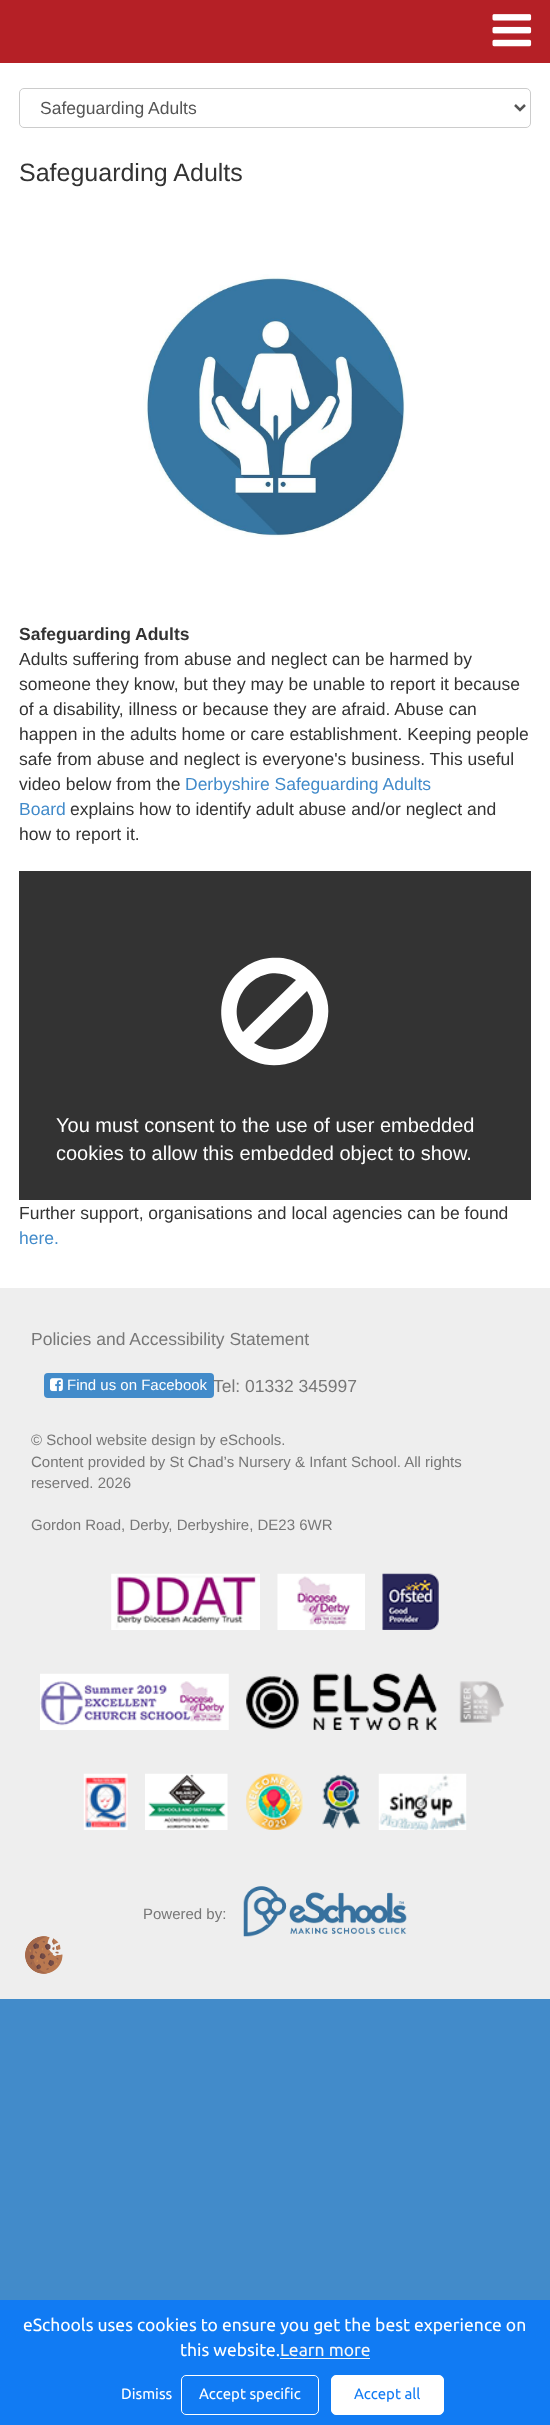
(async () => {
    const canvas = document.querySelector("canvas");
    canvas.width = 550;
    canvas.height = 2425;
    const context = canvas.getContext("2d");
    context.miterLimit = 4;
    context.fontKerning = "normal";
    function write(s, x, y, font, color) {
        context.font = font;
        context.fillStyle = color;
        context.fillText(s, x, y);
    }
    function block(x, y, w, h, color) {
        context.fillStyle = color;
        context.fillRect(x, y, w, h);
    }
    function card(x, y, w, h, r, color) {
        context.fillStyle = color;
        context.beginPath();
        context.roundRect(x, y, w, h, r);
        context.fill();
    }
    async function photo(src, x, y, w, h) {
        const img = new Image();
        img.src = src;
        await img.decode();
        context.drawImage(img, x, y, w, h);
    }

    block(0, 0, 550, 2425, "rgb(66, 139, 202)");
    block(0, 0, 550, 63, "rgb(181, 32, 38)");
    await photo("media/1.png", 492, 14, 40, 33);
    block(0, 63, 550, 1225, "rgb(255, 255, 255)");
    context.beginPath();
    context.roundRect(19.5, 88.5, 511, 39, 4.5);
    context.strokeStyle = "rgb(204, 204, 204)";
    context.stroke();
    context.beginPath();
    context.moveTo(515, 105);
    context.lineTo(520, 110);
    context.lineTo(525, 105);
    context.strokeStyle = "rgb(85, 85, 85)";
    context.lineWidth = 2.5;
    context.stroke();
    write("Safeguarding Adults", 40, 114, "17.5px Liberation Sans", "rgb(85, 85, 85)");
    write("Safeguarding Adults", 19, 181, "25px Liberation Sans", "rgb(51, 51, 51)");
    await photo("media/2.png", 143, 274, 262, 263);
    write("Safeguarding Adults", 19, 640, "bold 17.5px Liberation Sans", "rgb(51, 51, 51)");
    write("Adults suffering from abuse and neglect can be harmed by", 19, 665, "17.5px Liberation Sans", "rgb(51, 51, 51)");
    write("someone they know, but they may be unable to report it because", 19, 690, "17.5px Liberation Sans", "rgb(51, 51, 51)");
    write("of a disability, illness or because they are afraid. Abuse can", 19, 715, "17.5px Liberation Sans", "rgb(51, 51, 51)");
    write("happen in the adults home or care establishment. Keeping people", 19, 740, "17.5px Liberation Sans", "rgb(51, 51, 51)");
    write("safe from abuse and neglect is everyone's business. This useful", 19, 765, "17.5px Liberation Sans", "rgb(51, 51, 51)");
    write("video below from the", 19, 790, "17.5px Liberation Sans", "rgb(51, 51, 51)");
    write("Derbyshire Safeguarding Adults", 185, 790, "17.5px Liberation Sans", "rgb(66, 139, 202)");
    write("Board", 19, 815, "17.5px Liberation Sans", "rgb(66, 139, 202)");
    write("explains how to identify adult abuse and/or neglect and", 70, 815, "17.5px Liberation Sans", "rgb(51, 51, 51)");
    write("how to report it.", 19, 840, "17.5px Liberation Sans", "rgb(51, 51, 51)");
    block(19, 871, 512, 329, "rgb(51, 51, 51)");
    context.fillStyle = "rgb(255, 255, 255)";
    context.beginPath();
    context.moveTo(313, 1011);
    context.bezierCurveTo(313, 1004, 311, 997, 307, 991);
    context.lineTo(254, 1043);
    context.bezierCurveTo(279, 1060, 313, 1041, 313, 1011);
    context.closePath();
    context.moveTo(243, 1032);
    context.lineTo(296, 980);
    context.bezierCurveTo(262, 957, 221, 998, 243, 1032);
    context.closePath();
    context.moveTo(324, 991);
    context.bezierCurveTo(336, 1017, 322, 1049, 296, 1061);
    context.bezierCurveTo(283, 1066, 269, 1067, 256, 1062);
    context.bezierCurveTo(212, 1046, 209, 984, 252, 963);
    context.bezierCurveTo(261, 958, 272, 957, 283, 958);
    context.bezierCurveTo(301, 961, 317, 973, 324, 991);
    context.closePath();
    context.fill();
    write("You must consent to the use of user embedded", 56, 1132, "20px Liberation Sans", "rgb(255, 255, 255)");
    write("cookies to allow this embedded object to show.", 56, 1160, "20px Liberation Sans", "rgb(255, 255, 255)");
    write("Further support, organisations and local agencies can be found", 19, 1219, "17.5px Liberation Sans", "rgb(51, 51, 51)");
    write("here.", 19, 1244, "17.5px Liberation Sans", "rgb(66, 139, 202)");
    block(0, 1288, 550, 711, "rgb(238, 238, 238)");
    write("Policies and Accessibility Statement", 31, 1345, "17.5px Liberation Sans", "rgb(119, 119, 119)");
    card(44, 1373, 170, 25, 4, "rgb(66, 139, 202)");
    await photo("media/3.png", 50, 1378, 13, 14);
    write("Find us on Facebook", 67, 1390, "15px Liberation Sans", "rgb(255, 255, 255)");
    write("Tel: 01332 345997", 213, 1392, "17.5px Liberation Sans", "rgb(119, 119, 119)");
    write("© School website design by eSchools.", 31, 1445, "15px Liberation Sans", "rgb(119, 119, 119)");
    write("Content provided by St Chad’s Nursery & Infant School. All rights", 31, 1467, "15px Liberation Sans", "rgb(119, 119, 119)");
    write("reserved. 2026", 31, 1488, "15px Liberation Sans", "rgb(119, 119, 119)");
    write("Gordon Road, Derby, Derbyshire, DE23 6WR", 31, 1530, "15px Liberation Sans", "rgb(119, 119, 119)");
    await photo("media/4.png", 111, 1573, 149, 57);
    await photo("media/5.png", 277, 1573, 88, 57);
    await photo("media/6.png", 382, 1573, 57, 57);
    await photo("media/7.png", 40, 1673, 189, 57);
    await photo("media/8.png", 246, 1673, 191, 57);
    await photo("media/9.png", 459, 1681, 45, 42);
    await photo("media/10.png", 83, 1773, 45, 57);
    await photo("media/11.png", 145, 1773, 83, 57);
    await photo("media/12.png", 246, 1773, 57, 57);
    await photo("media/13.png", 322, 1774, 39, 55);
    await photo("media/14.png", 378, 1773, 89, 57);
    write("Powered by:", 143, 1919, "15px Liberation Sans", "rgb(119, 119, 119)");
    await photo("media/15.png", 243, 1886, 164, 51);
    await photo("media/16.png", 25, 1936, 38, 38);
    block(0, 2300, 550, 125, "rgb(17, 123, 243)");
    write("eSchools uses cookies to ensure you get the best experience on", 23, 2331, "17.5px Ubuntu", "rgb(255, 255, 255)");
    write("this website.", 180, 2356, "17.5px Ubuntu", "rgb(255, 255, 255)");
    write("Learn more", 280, 2356, "17.5px Ubuntu", "rgb(247, 247, 247)");
    block(280, 2358, 90, 1, "rgb(247, 247, 247)");
    write("Dismiss", 121, 2399, "15px Ubuntu", "rgb(255, 255, 255)");
    context.beginPath();
    context.roundRect(181.5, 2375.5, 137, 39, 4.5);
    context.strokeStyle = "rgb(255, 255, 255)";
    context.lineWidth = 1;
    context.stroke();
    write("Accept specific", 199, 2399, "15px Ubuntu", "rgb(255, 255, 255)");
    context.beginPath();
    context.roundRect(331.5, 2375.5, 112, 39, 4.5);
    context.fill();
    context.stroke();
    write("Accept all", 354, 2399, "15px Ubuntu", "rgb(17, 123, 243)");
})();
